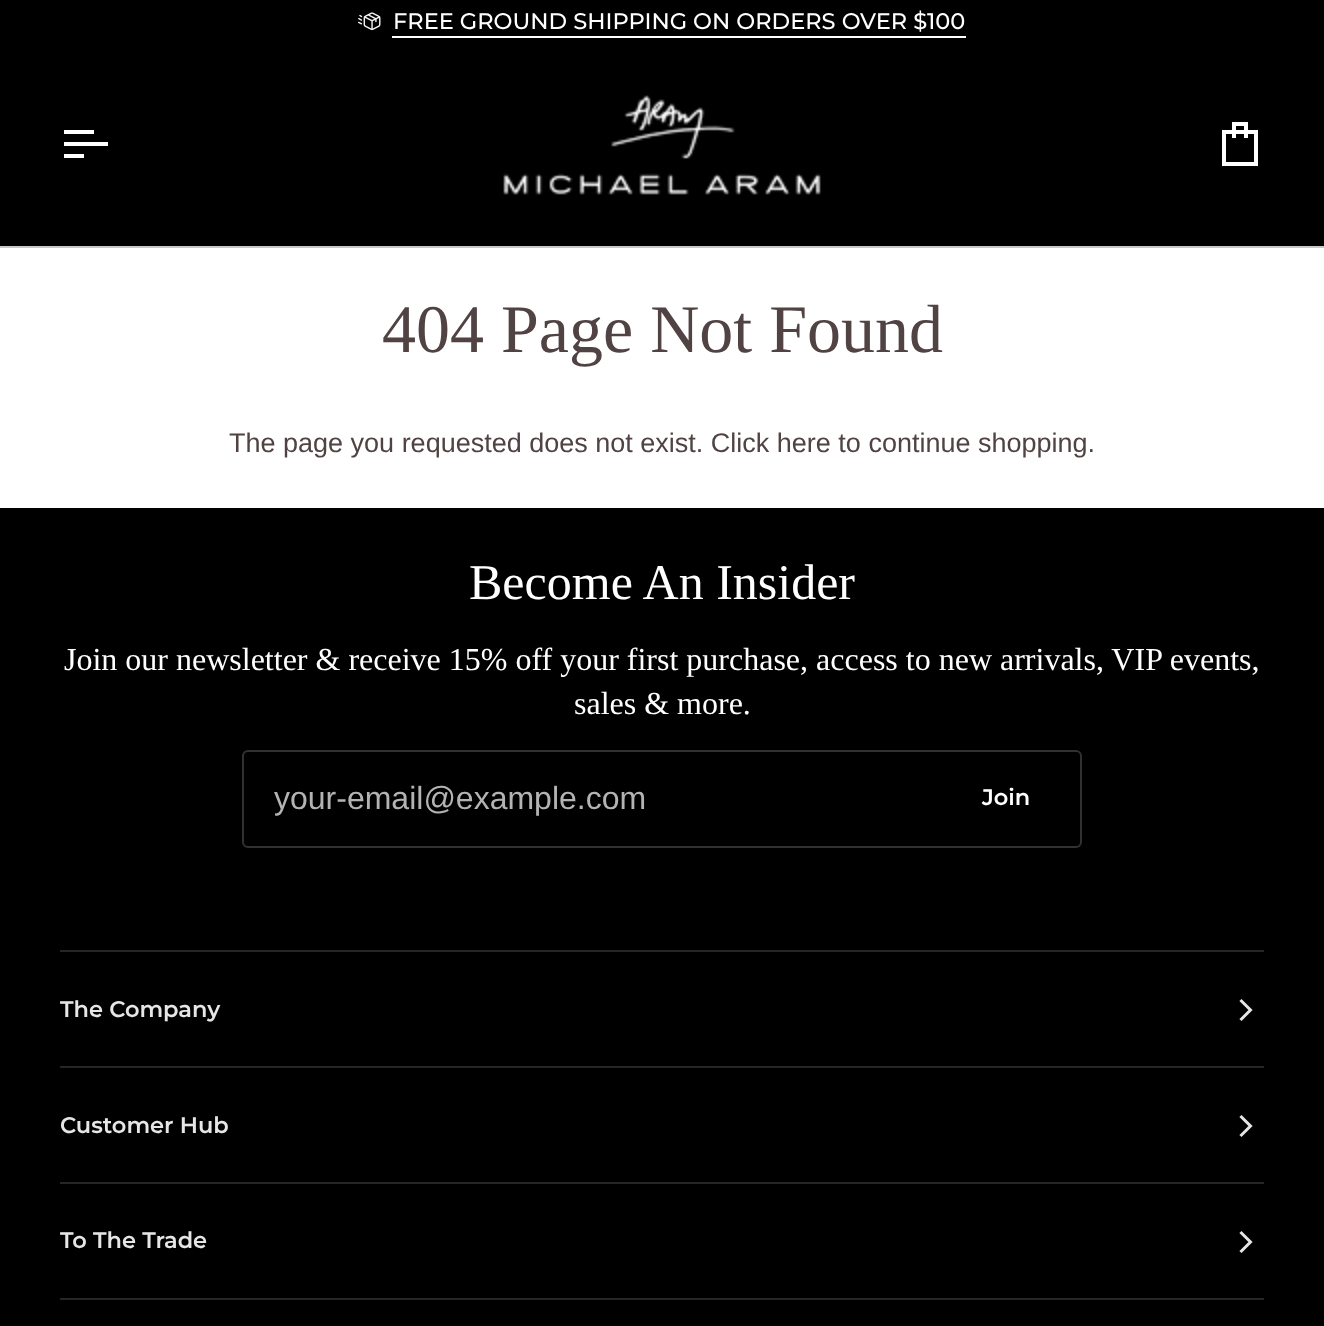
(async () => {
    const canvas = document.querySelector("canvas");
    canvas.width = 1324;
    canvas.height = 1326;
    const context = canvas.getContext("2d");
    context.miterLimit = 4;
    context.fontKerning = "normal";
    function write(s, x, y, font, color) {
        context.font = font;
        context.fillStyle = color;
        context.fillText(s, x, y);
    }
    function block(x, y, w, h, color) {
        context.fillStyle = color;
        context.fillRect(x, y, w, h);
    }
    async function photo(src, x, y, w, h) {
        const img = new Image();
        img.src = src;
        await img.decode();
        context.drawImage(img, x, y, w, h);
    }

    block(0, 0, 1324, 1326, "rgb(255, 255, 255)");
    block(0, 0, 1324, 246, "rgb(0, 0, 0)");
    await photo("media/1.png", 358, 12, 23, 19);
    write("FREE GROUND SHIPPING ON ORDERS OVER $100", 393, 29, "500 22.5px Montserrat", "rgb(255, 255, 255)");
    block(392, 36, 574, 2, "rgb(255, 255, 255)");
    block(0, 246, 1324, 2, "rgb(201, 201, 201)");
    context.beginPath();
    context.moveTo(92, 132);
    context.lineTo(66, 132);
    context.moveTo(106, 144);
    context.lineTo(66, 144);
    context.moveTo(82, 156);
    context.lineTo(66, 156);
    context.strokeStyle = "rgb(255, 255, 255)";
    context.lineWidth = 4;
    context.lineCap = "square";
    context.stroke();
    await photo("media/2.png", 503, 95, 318, 100);
    context.beginPath();
    context.moveTo(1224, 132);
    context.lineTo(1256, 132);
    context.lineTo(1256, 164);
    context.lineTo(1224, 164);
    context.closePath();
    context.moveTo(1234, 138);
    context.lineTo(1234, 124);
    context.lineTo(1246, 124);
    context.lineTo(1246, 138);
    context.lineCap = "butt";
    context.stroke();
    write("404 Page Not Found", 382, 352, "68px Liberation Serif", "rgb(81, 67, 67)");
    write("The page you requested does not exist. Click here to continue shopping.", 229, 452, "27px Liberation Sans", "rgb(81, 67, 67)");
    block(0, 508, 1324, 818, "rgb(0, 0, 0)");
    write("Become An Insider", 469, 599, "50px Liberation Serif", "rgb(255, 255, 255)");
    write("Join our newsletter & receive 15% off your first purchase, access to new arrivals, VIP events,", 64, 670, "32px Liberation Serif", "rgb(255, 255, 255)");
    write("sales & more.", 574, 714, "32px Liberation Serif", "rgb(255, 255, 255)");
    context.beginPath();
    context.roundRect(243, 751, 838, 96, 5);
    context.strokeStyle = "rgb(49, 49, 49)";
    context.lineWidth = 2;
    context.stroke();
    write("your-email@example.com", 274, 809, "32px Liberation Sans", "rgb(179, 179, 179)");
    write("Join", 982, 805, "600 22.5px Montserrat", "rgb(255, 255, 255)");
    block(60, 950, 1204, 2, "rgb(38, 38, 38)");
    block(60, 1066, 1204, 2, "rgb(38, 38, 38)");
    write("The Company", 60, 1017, "600 22.5px Montserrat", "rgb(230, 230, 230)");
    context.beginPath();
    context.moveTo(1241.5, 1019);
    context.lineTo(1250.5, 1010);
    context.lineTo(1241.5, 1001);
    context.strokeStyle = "rgb(230, 230, 230)";
    context.lineWidth = 3;
    context.lineCap = "square";
    context.stroke();
    block(60, 1182, 1204, 2, "rgb(38, 38, 38)");
    write("Customer Hub", 60, 1133, "600 22.5px Montserrat", "rgb(230, 230, 230)");
    context.beginPath();
    context.moveTo(1241.5, 1135);
    context.lineTo(1250.5, 1126);
    context.lineTo(1241.5, 1117);
    context.stroke();
    block(60, 1298, 1204, 2, "rgb(38, 38, 38)");
    write("To The Trade", 60, 1248, "600 22.5px Montserrat", "rgb(230, 230, 230)");
    context.beginPath();
    context.moveTo(1241.5, 1251);
    context.lineTo(1250.5, 1242);
    context.lineTo(1241.5, 1233);
    context.stroke();
})();
